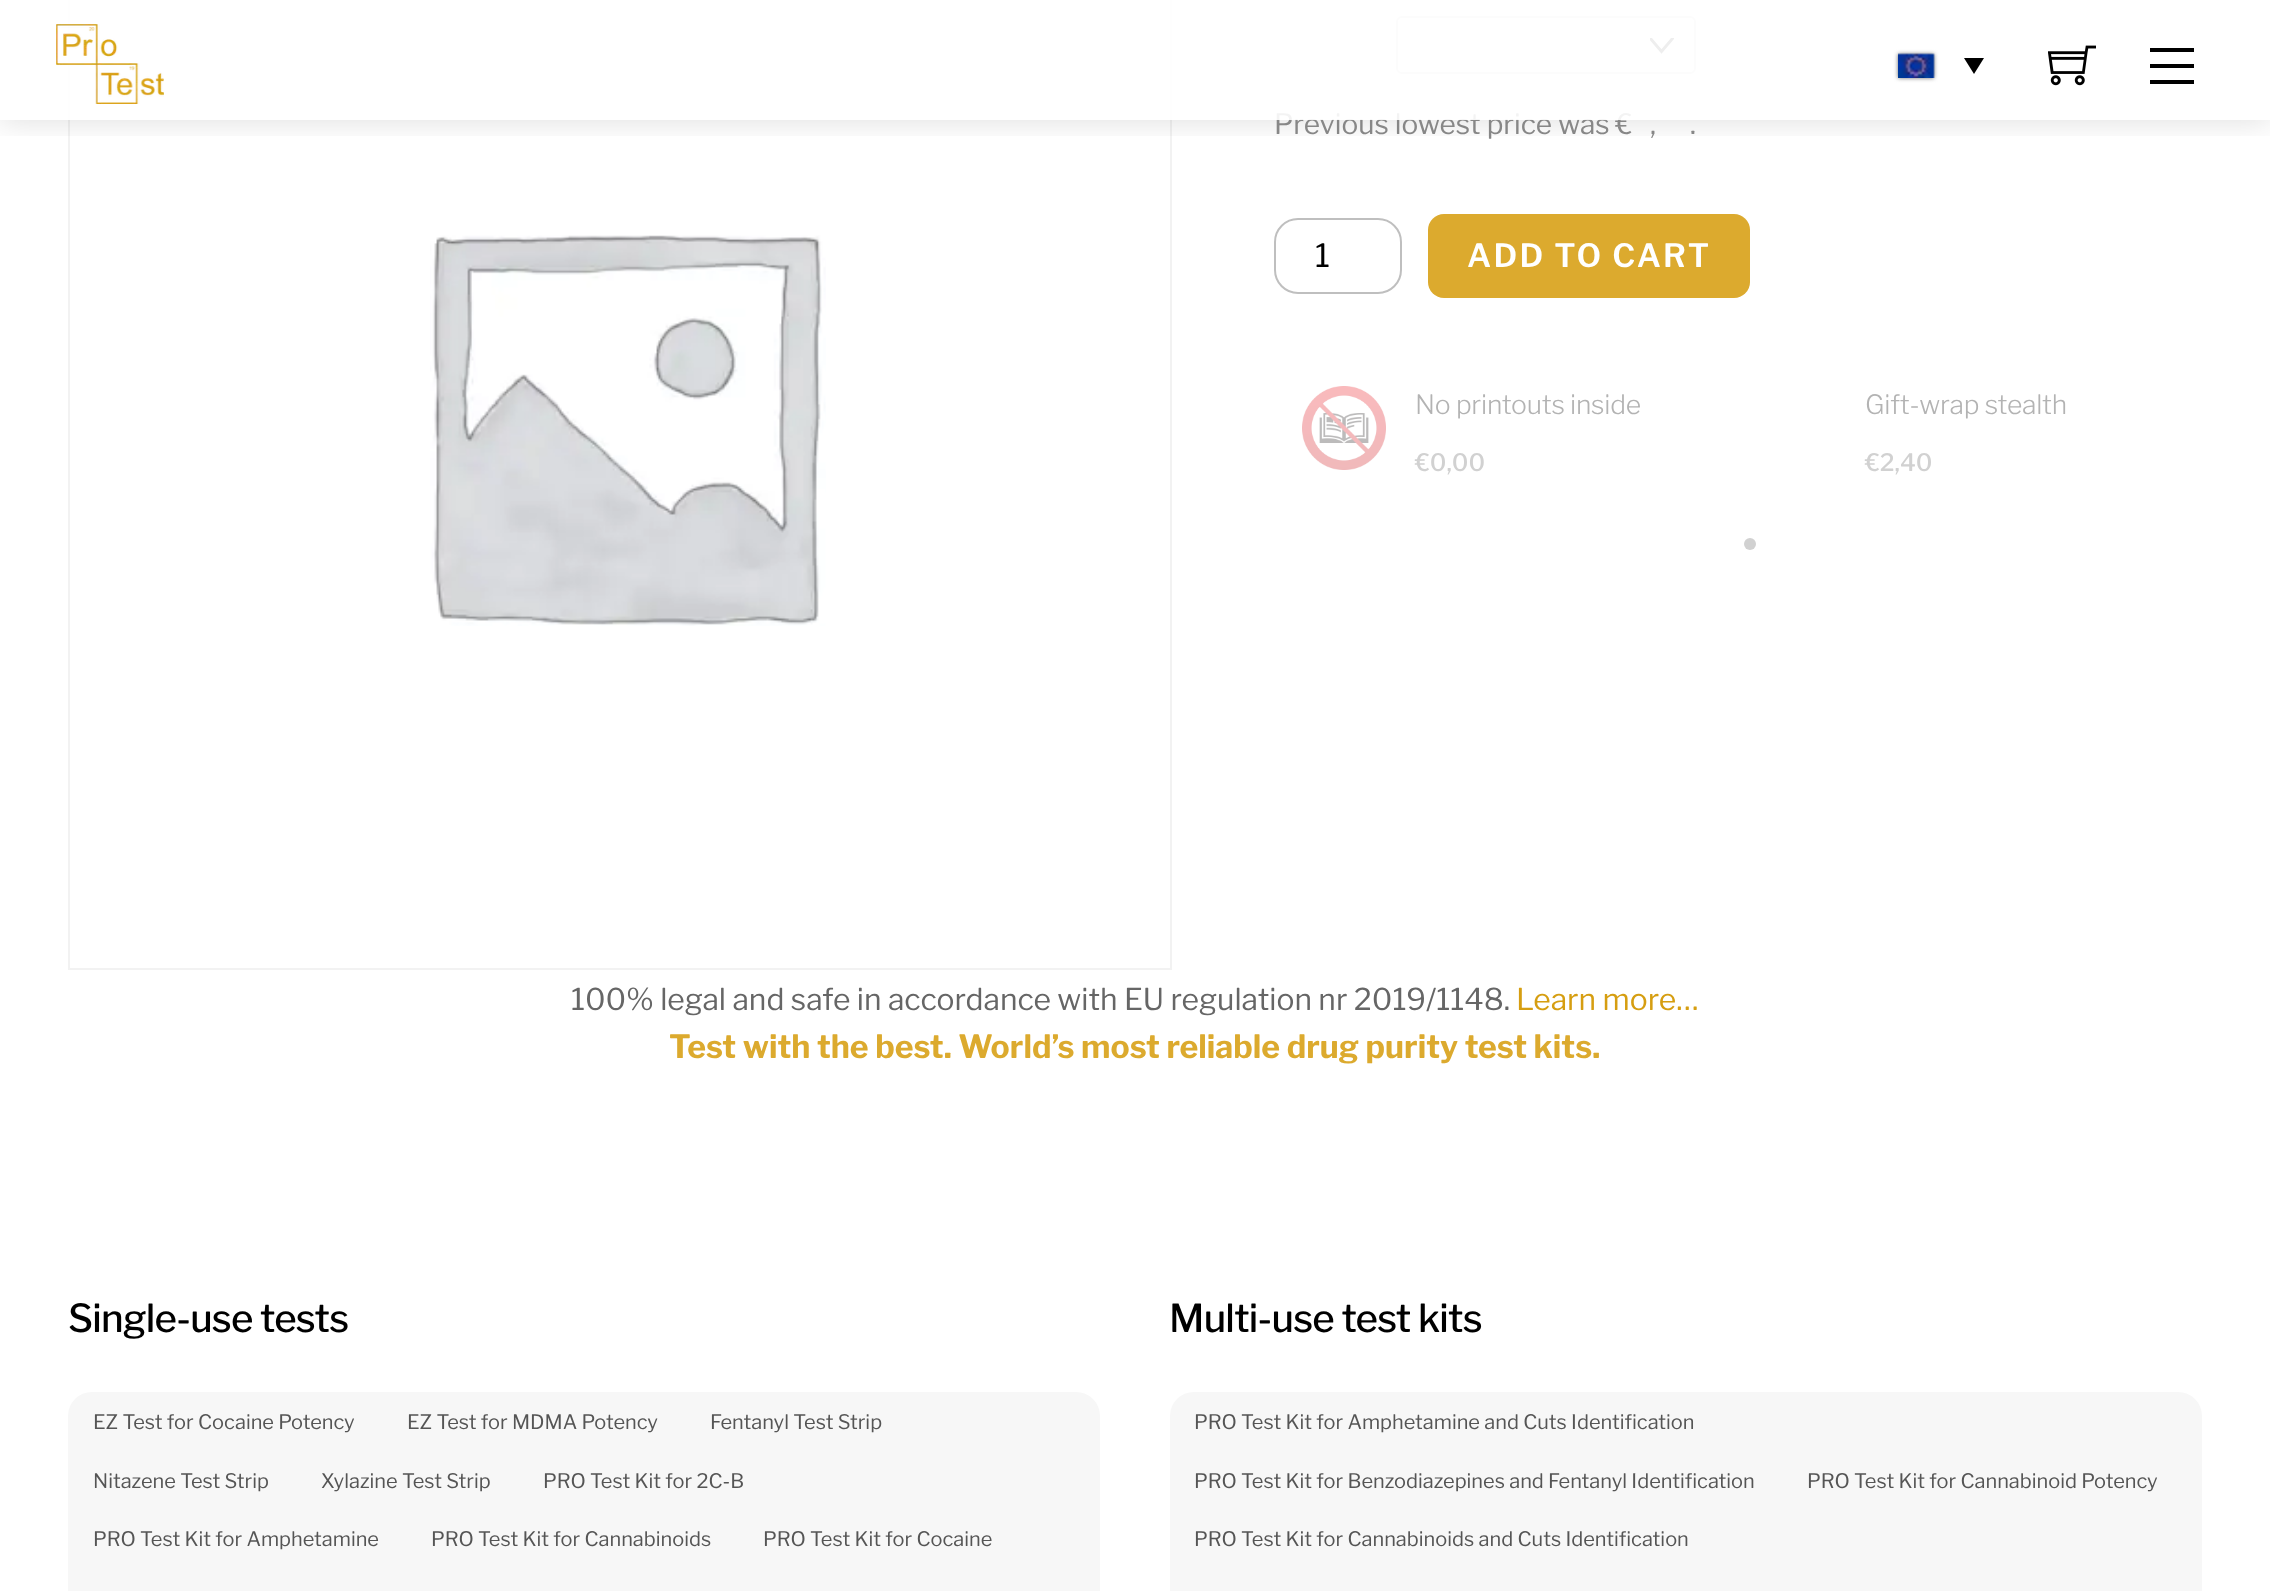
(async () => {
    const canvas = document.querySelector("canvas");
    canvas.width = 2270;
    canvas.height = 1591;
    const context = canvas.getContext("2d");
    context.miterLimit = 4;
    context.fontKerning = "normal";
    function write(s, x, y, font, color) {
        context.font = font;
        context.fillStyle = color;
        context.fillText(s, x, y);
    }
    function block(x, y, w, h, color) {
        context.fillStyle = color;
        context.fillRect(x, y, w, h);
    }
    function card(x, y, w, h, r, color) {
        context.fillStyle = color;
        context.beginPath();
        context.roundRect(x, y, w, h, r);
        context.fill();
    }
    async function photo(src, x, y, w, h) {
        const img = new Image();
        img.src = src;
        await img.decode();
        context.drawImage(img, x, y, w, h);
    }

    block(0, 0, 2270, 1591, "rgb(255, 255, 255)");
    context.strokeStyle = "rgb(242, 242, 242)";
    context.lineWidth = 2;
    context.strokeRect(69, -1, 1102, 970);
    context.save();
    context.beginPath();
    context.rect(1650, 38, 24, 24);
    context.clip();
    context.beginPath();
    context.moveTo(1650.5, 38.5);
    context.lineTo(1661.5, 51.5);
    context.lineTo(1672.5, 38.5);
    context.strokeStyle = "rgb(83, 83, 83)";
    context.lineWidth = 2.9;
    context.lineCap = "round";
    context.stroke();
    context.restore();
    context.beginPath();
    context.roundRect(1397, 17, 298, 56, 5);
    context.strokeStyle = "rgb(221, 221, 221)";
    context.stroke();
    context.save();
    context.beginPath();
    context.rect(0, 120, 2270, 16);
    context.clip();
    context.fillStyle = "rgba(0, 0, 0, 0.12)";
    context.filter = "blur(15px)";
    context.beginPath();
    context.rect(0, 2, 2270, 120);
    context.fill();
    context.filter = "none";
    context.restore();
    write("Previous lowest price was €", 1274, 134, "28px Libre Franklin", "rgb(135, 135, 135)");
    block(68, 0, 1628, 120, "rgba(255, 255, 255, 0.9)");
    await photo("media/1.png", 56, 24, 108, 80);
    context.fillStyle = "rgb(112, 112, 112)";
    context.filter = "blur(2px)";
    context.beginPath();
    context.rect(1898, 54, 36, 24);
    context.fill();
    context.filter = "none";
    await photo("media/2.png", 1898, 53, 37, 25);
    context.fillStyle = "rgb(0, 0, 0)";
    context.beginPath();
    context.moveTo(1964, 58);
    context.lineTo(1984, 58);
    context.lineTo(1974, 74);
    context.closePath();
    context.fill();
    await photo("media/3.png", 2048, 45, 48, 41);
    block(2150, 48, 44, 4, "rgb(0, 0, 0)");
    block(2150, 80, 44, 4, "rgb(0, 0, 0)");
    block(2150, 64, 44, 4, "rgb(0, 0, 0)");
    await photo("media/4.png", 430, 235, 396, 391);
    write(",", 1650, 134, "28px Libre Franklin", "rgb(135, 135, 135)");
    write(".", 1690, 134, "28px Libre Franklin", "rgb(135, 135, 135)");
    context.beginPath();
    context.roundRect(1275, 219, 126, 74, 23);
    context.strokeStyle = "rgb(191, 191, 191)";
    context.stroke();
    write("1", 1315, 267, "32px Libre Franklin", "rgb(0, 0, 0)");
    card(1428, 214, 322, 84, 16, "rgb(220, 170, 46)");
    context.letterSpacing = "2.25px";
    write("ADD TO CART", 1467, 267, "600 32px Libre Franklin", "rgb(255, 255, 255)");
    await photo("media/5.png", 1302, 386, 84, 84);
    context.letterSpacing = "-0.25px";
    write("No printouts inside", 1415, 414, "300 26.5px Libre Franklin", "rgb(179, 179, 179)");
    context.letterSpacing = "0px";
    write("€0,00", 1415, 471, "500 24px Libre Franklin", "rgb(209, 209, 209)");
    context.letterSpacing = "-0.25px";
    write("Gift-wrap stealth", 1865, 414, "300 26.5px Libre Franklin", "rgb(179, 179, 179)");
    context.letterSpacing = "0px";
    write("€2,40", 1865, 471, "500 24px Libre Franklin", "rgb(209, 209, 209)");
    context.beginPath();
    context.arc(1750, 544, 6, 0, Math.PI * 2);
    context.fill();
    write("100% legal and safe in accordance with EU regulation nr 2019/1148.", 571, 1010, "30px Libre Franklin", "rgb(102, 102, 102)");
    write("Learn more…", 1516, 1010, "30px Libre Franklin", "rgb(214, 158, 17)");
    write("Test with the best. World’s most reliable drug purity test kits.", 669, 1058, "bold 32px Libre Franklin", "rgb(220, 170, 46)");
    context.letterSpacing = "-0.75px";
    write("Single-use tests", 68, 1332, "500 38.5px Libre Franklin", "rgb(0, 0, 0)");
    card(68, 1392, 1032, 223, 24, "rgb(247, 247, 247)");
    context.letterSpacing = "0px";
    write("EZ Test for Cocaine Potency", 93, 1429, "20px Libre Franklin", "rgb(85, 85, 85)");
    write("EZ Test for MDMA Potency", 407, 1429, "20px Libre Franklin", "rgb(85, 85, 85)");
    write("Fentanyl Test Strip", 710, 1429, "20px Libre Franklin", "rgb(85, 85, 85)");
    write("Nitazene Test Strip", 93, 1488, "20px Libre Franklin", "rgb(85, 85, 85)");
    write("Xylazine Test Strip", 321, 1488, "20px Libre Franklin", "rgb(85, 85, 85)");
    write("PRO Test Kit for 2C-B", 543, 1488, "20px Libre Franklin", "rgb(85, 85, 85)");
    write("PRO Test Kit for Amphetamine", 93, 1546, "20px Libre Franklin", "rgb(85, 85, 85)");
    write("PRO Test Kit for Cannabinoids", 431, 1546, "20px Libre Franklin", "rgb(85, 85, 85)");
    write("PRO Test Kit for Cocaine", 763, 1546, "20px Libre Franklin", "rgb(85, 85, 85)");
    context.letterSpacing = "-0.75px";
    write("Multi-use test kits", 1169, 1332, "500 38.5px Libre Franklin", "rgb(0, 0, 0)");
    card(1170, 1392, 1032, 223, 24, "rgb(247, 247, 247)");
    context.letterSpacing = "0px";
    write("PRO Test Kit for Amphetamine and Cuts Identification", 1194, 1429, "20px Libre Franklin", "rgb(85, 85, 85)");
    write("PRO Test Kit for Benzodiazepines and Fentanyl Identification", 1194, 1488, "20px Libre Franklin", "rgb(85, 85, 85)");
    write("PRO Test Kit for Cannabinoid Potency", 1807, 1488, "20px Libre Franklin", "rgb(85, 85, 85)");
    write("PRO Test Kit for Cannabinoids and Cuts Identification", 1194, 1546, "20px Libre Franklin", "rgb(85, 85, 85)");
})();
